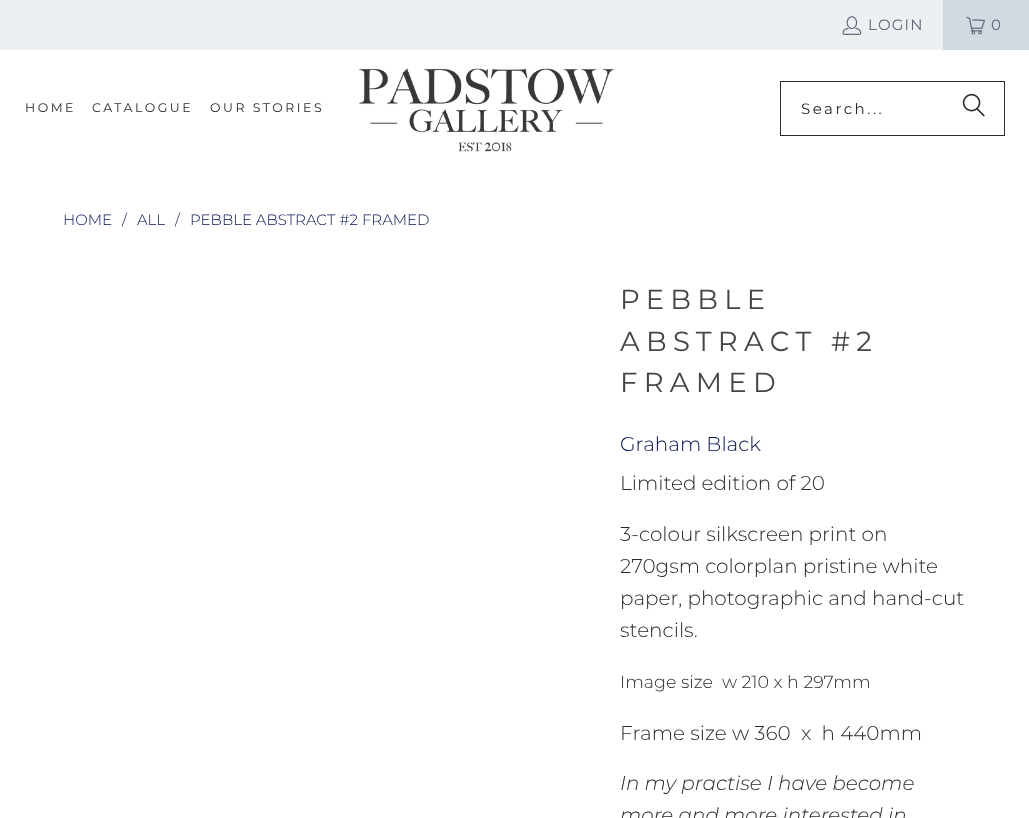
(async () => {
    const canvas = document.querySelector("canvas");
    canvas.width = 1029;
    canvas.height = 818;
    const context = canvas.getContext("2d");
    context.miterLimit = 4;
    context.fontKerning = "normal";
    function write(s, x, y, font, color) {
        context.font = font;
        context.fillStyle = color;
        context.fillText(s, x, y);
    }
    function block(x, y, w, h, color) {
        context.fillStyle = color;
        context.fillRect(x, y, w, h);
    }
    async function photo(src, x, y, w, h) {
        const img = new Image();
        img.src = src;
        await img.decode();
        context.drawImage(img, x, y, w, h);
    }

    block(0, 0, 1029, 818, "rgb(255, 255, 255)");
    block(0, 0, 943, 50, "rgb(236, 240, 243)");
    await photo("media/1.png", 842, 16, 20, 19);
    context.letterSpacing = "1.25px";
    write("LOGIN", 868, 30, "15px Montserrat", "rgb(98, 103, 123)");
    block(943, 0, 86, 50, "rgb(209, 217, 225)");
    await photo("media/2.png", 966, 16, 19, 19);
    write("0", 991, 30, "15px Montserrat", "rgb(98, 103, 123)");
    context.letterSpacing = "2.5px";
    write("HOME", 25, 112, "12.5px Montserrat", "rgb(43, 42, 42)");
    write("CATALOGUE", 92, 112, "12.5px Montserrat", "rgb(43, 42, 42)");
    write("OUR STORIES", 210, 112, "12.5px Montserrat", "rgb(43, 42, 42)");
    await photo("media/3.png", 359, 68, 255, 84);
    context.strokeStyle = "rgb(43, 42, 42)";
    context.strokeRect(780.5, 81.5, 224, 54);
    write("Search...", 801, 114, "15px Montserrat", "rgb(43, 42, 42)");
    await photo("media/4.png", 962, 93, 23, 24);
    context.letterSpacing = "0px";
    write("HOME", 63, 225, "300 15px Montserrat", "rgb(2, 15, 76)");
    write("/", 122, 225, "300 15px Montserrat", "rgb(2, 15, 76)");
    write("ALL", 137, 225, "300 15px Montserrat", "rgb(2, 15, 76)");
    write("/", 175, 225, "300 15px Montserrat", "rgb(2, 15, 76)");
    write("PEBBLE ABSTRACT #2 FRAMED", 190, 225, "300 15px Montserrat", "rgb(2, 15, 76)");
    context.letterSpacing = "6.25px";
    write("PEBBLE", 620, 309, "27.5px Montserrat", "rgb(69, 69, 69)");
    write("ABSTRACT #2", 620, 351, "27.5px Montserrat", "rgb(69, 69, 69)");
    write("FRAMED", 620, 392, "27.5px Montserrat", "rgb(69, 69, 69)");
    context.letterSpacing = "0px";
    write("Graham Black", 620, 451, "300 20px Montserrat", "rgb(2, 15, 76)");
    write("Limited edition of 20", 620, 490, "300 20px Montserrat", "rgb(43, 42, 42)");
    write("3-colour silkscreen print on", 620, 541, "300 20px Montserrat", "rgb(43, 42, 42)");
    write("270gsm colorplan pristine white", 620, 573, "300 20px Montserrat", "rgb(43, 42, 42)");
    write("paper, photographic and hand-cut", 620, 605, "300 20px Montserrat", "rgb(43, 42, 42)");
    write("stencils.", 620, 637, "300 20px Montserrat", "rgb(43, 42, 42)");
    write("Image size  w 210 x h 297mm", 620, 688, "300 17.5px Montserrat", "rgb(43, 42, 42)");
    write("Frame size w 360  x  h 440mm", 620, 740, "300 20px Montserrat", "rgb(43, 42, 42)");
    write("In my practise I have become", 620, 790, "italic 300 20px Montserrat", "rgb(43, 42, 42)");
    write("more and more interested in", 620, 822, "italic 300 20px Montserrat", "rgb(43, 42, 42)");
})();
